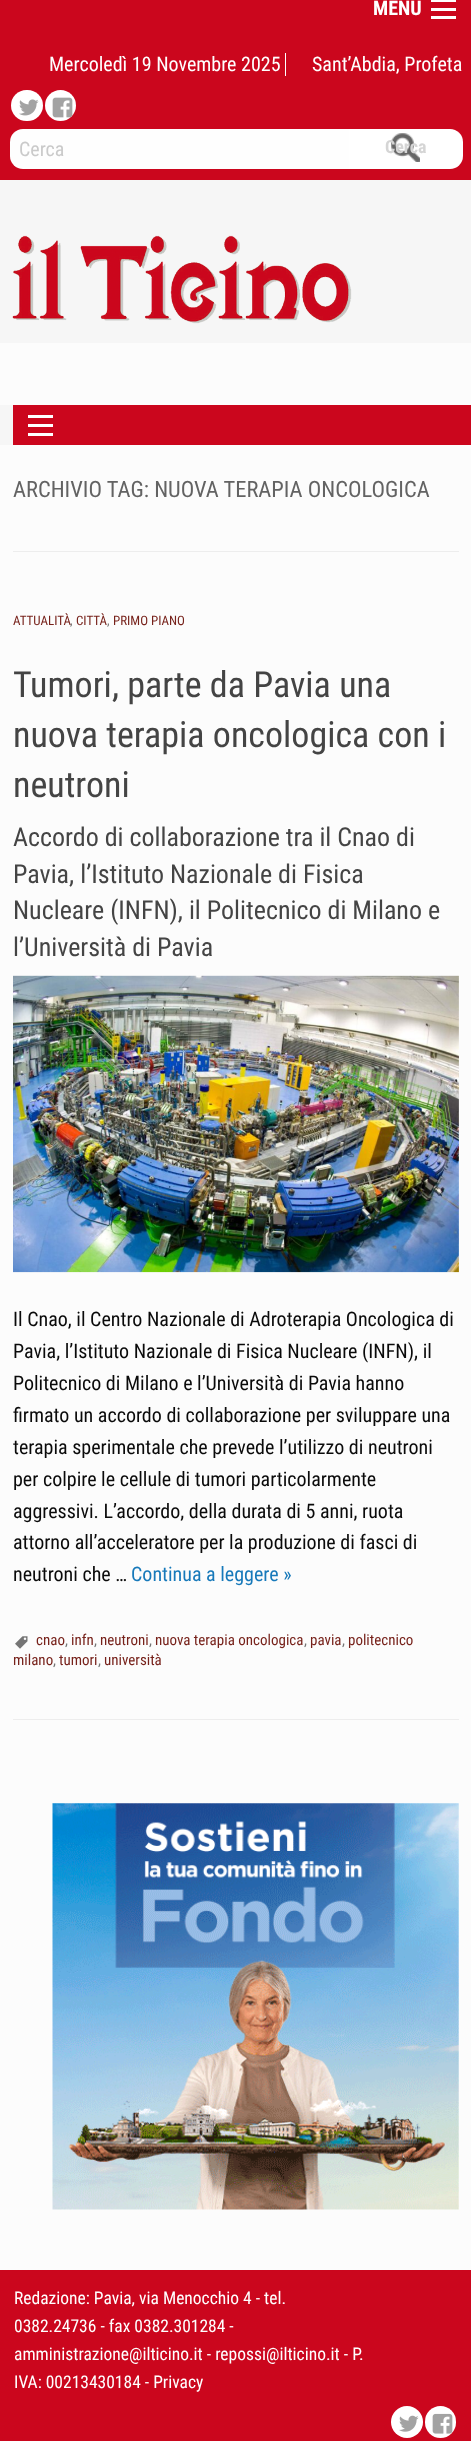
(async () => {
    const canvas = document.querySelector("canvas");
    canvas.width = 471;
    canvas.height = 2441;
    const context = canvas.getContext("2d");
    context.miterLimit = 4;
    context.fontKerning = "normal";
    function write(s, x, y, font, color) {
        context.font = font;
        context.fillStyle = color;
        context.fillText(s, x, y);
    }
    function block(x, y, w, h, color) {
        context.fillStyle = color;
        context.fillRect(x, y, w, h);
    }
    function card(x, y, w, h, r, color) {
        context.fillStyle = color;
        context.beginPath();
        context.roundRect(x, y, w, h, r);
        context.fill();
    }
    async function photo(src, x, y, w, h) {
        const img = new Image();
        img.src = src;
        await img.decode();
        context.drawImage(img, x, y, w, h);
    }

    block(0, 0, 471, 2441, "rgb(252, 252, 252)");
    block(0, 0, 471, 180, "rgb(203, 6, 29)");
    write("MENU", 373, 15, "bold 20px Roboto Condensed", "rgb(255, 255, 255)");
    block(431, 16, 25, 3, "rgb(255, 255, 255)");
    block(431, 8, 25, 3, "rgb(255, 255, 255)");
    block(431, 0, 25, 2, "rgb(255, 255, 255)");
    write("Mercoledì 19 Novembre 2025", 49, 71, "20px Roboto Condensed", "rgb(255, 255, 255)");
    write("Sant’Abdia, Profeta", 312, 71, "20px Roboto Condensed", "rgb(255, 255, 255)");
    block(285, 53, 1, 23, "rgb(255, 255, 255)");
    card(11, 90, 32, 31, 15.5, "rgb(255, 255, 255)");
    await photo("media/1.png", 19, 99, 20, 17);
    context.beginPath();
    context.arc(60.5, 105.5, 15.5, 0, Math.PI * 2);
    context.fill();
    await photo("media/2.png", 52, 97, 21, 21);
    context.fillStyle = "rgb(254, 254, 254)";
    context.beginPath();
    context.roundRect(10, 129, 339, 40, [13, 0, 0, 13]);
    context.fill();
    write("Cerca", 19, 156, "20px Roboto Condensed", "rgb(202, 202, 202)");
    context.fillStyle = "rgb(255, 255, 255)";
    context.beginPath();
    context.roundRect(349, 129, 114, 40, [0, 13, 13, 0]);
    context.fill();
    await photo("media/3.png", 391, 133, 29, 29);
    write("Cerca", 385, 153, "bold 18px Roboto Condensed", "rgb(213, 213, 213)");
    block(0, 180, 471, 163, "rgb(246, 246, 246)");
    await photo("media/4.png", 12, 235, 340, 89);
    block(0, 405, 13, 40, "rgb(246, 246, 246)");
    block(13, 405, 458, 40, "rgb(203, 6, 29)");
    block(28, 433, 25, 3, "rgb(255, 255, 255)");
    block(28, 424, 25, 3, "rgb(255, 255, 255)");
    block(28, 415, 25, 3, "rgb(255, 255, 255)");
    block(13, 551, 446, 1, "rgb(237, 237, 237)");
    write("ARCHIVIO TAG: NUOVA TERAPIA ONCOLOGICA", 13, 497, "22.5px Roboto Condensed", "rgb(99, 99, 99)");
    block(13, 1719, 446, 1, "rgb(237, 237, 237)");
    write("ATTUALITÀ", 13, 625, "13px Roboto Condensed", "rgb(119, 34, 27)");
    write(",", 70, 625, "13px Roboto Condensed", "rgb(117, 117, 117)");
    write("CITTÀ", 76, 625, "13px Roboto Condensed", "rgb(119, 34, 27)");
    write(",", 107, 625, "13px Roboto Condensed", "rgb(117, 117, 117)");
    write("PRIMO PIANO", 113, 625, "13px Roboto Condensed", "rgb(119, 34, 27)");
    write("Tumori, parte da Pavia una", 13, 697, "36px Roboto Condensed", "rgb(68, 68, 68)");
    write("nuova terapia oncologica con i", 13, 747, "36px Roboto Condensed", "rgb(68, 68, 68)");
    write("neutroni", 13, 797, "36px Roboto Condensed", "rgb(68, 68, 68)");
    write("Accordo di collaborazione tra il Cnao di", 13, 846, "26px Roboto Condensed", "rgb(68, 68, 68)");
    write("Pavia, l’Istituto Nazionale di Fisica", 13, 883, "26px Roboto Condensed", "rgb(68, 68, 68)");
    write("Nucleare (INFN), il Politecnico di Milano e", 13, 919, "26px Roboto Condensed", "rgb(68, 68, 68)");
    write("l’Università di Pavia", 13, 956, "26px Roboto Condensed", "rgb(68, 68, 68)");
    await photo("media/5.png", 13, 975, 446, 298);
    write("Il Cnao, il Centro Nazionale di Adroterapia Oncologica di", 13, 1326, "20px Roboto Condensed", "rgb(10, 10, 10)");
    write("Pavia, l’Istituto Nazionale di Fisica Nucleare (INFN), il", 13, 1358, "20px Roboto Condensed", "rgb(10, 10, 10)");
    write("Politecnico di Milano e l’Università di Pavia hanno", 13, 1390, "20px Roboto Condensed", "rgb(10, 10, 10)");
    write("firmato un accordo di collaborazione per sviluppare una", 13, 1422, "20px Roboto Condensed", "rgb(10, 10, 10)");
    write("terapia sperimentale che prevede l’utilizzo di neutroni", 13, 1454, "20px Roboto Condensed", "rgb(10, 10, 10)");
    write("per colpire le cellule di tumori particolarmente", 13, 1486, "20px Roboto Condensed", "rgb(10, 10, 10)");
    write("aggressivi. L’accordo, della durata di 5 anni, ruota", 13, 1518, "20px Roboto Condensed", "rgb(10, 10, 10)");
    write("attorno all’acceleratore per la produzione di fasci di", 13, 1549, "20px Roboto Condensed", "rgb(10, 10, 10)");
    write("neutroni che …", 13, 1581, "20px Roboto Condensed", "rgb(10, 10, 10)");
    write("Continua a leggere »", 131, 1581, "20px Roboto Condensed", "rgb(23, 121, 186)");
    await photo("media/6.png", 15, 1636, 13, 13);
    write("cnao", 36, 1645, "15px Roboto Condensed", "rgb(119, 34, 27)");
    write(",", 65, 1645, "15px Roboto Condensed", "rgb(117, 117, 117)");
    write("infn", 71, 1645, "15px Roboto Condensed", "rgb(119, 34, 27)");
    write(",", 94, 1645, "15px Roboto Condensed", "rgb(117, 117, 117)");
    write("neutroni", 100, 1645, "15px Roboto Condensed", "rgb(119, 34, 27)");
    write(",", 149, 1645, "15px Roboto Condensed", "rgb(117, 117, 117)");
    write("nuova terapia oncologica", 155, 1645, "15px Roboto Condensed", "rgb(119, 34, 27)");
    write(",", 304, 1645, "15px Roboto Condensed", "rgb(117, 117, 117)");
    write("pavia", 310, 1645, "15px Roboto Condensed", "rgb(119, 34, 27)");
    write(",", 342, 1645, "15px Roboto Condensed", "rgb(117, 117, 117)");
    write("politecnico", 348, 1645, "15px Roboto Condensed", "rgb(119, 34, 27)");
    write("milano", 13, 1665, "15px Roboto Condensed", "rgb(119, 34, 27)");
    write(",", 53, 1665, "15px Roboto Condensed", "rgb(117, 117, 117)");
    write("tumori", 59, 1665, "15px Roboto Condensed", "rgb(119, 34, 27)");
    write(",", 98, 1665, "15px Roboto Condensed", "rgb(117, 117, 117)");
    write("università", 104, 1665, "15px Roboto Condensed", "rgb(119, 34, 27)");
    await photo("media/7.png", 52, 1803, 407, 407);
    block(0, 2270, 471, 171, "rgb(203, 6, 29)");
    write("Redazione: Pavia, via Menocchio 4 - tel.", 14, 2304, "17.5px Roboto Condensed", "rgb(255, 255, 255)");
    write("0382.24736 - fax 0382.301284 -", 14, 2332, "17.5px Roboto Condensed", "rgb(255, 255, 255)");
    write("amministrazione@ilticino.it - repossi@ilticino.it - P.", 14, 2360, "17.5px Roboto Condensed", "rgb(255, 255, 255)");
    write("IVA: 00213430184 - Privacy", 14, 2388, "17.5px Roboto Condensed", "rgb(255, 255, 255)");
    context.beginPath();
    context.arc(407, 2422, 16, 0, Math.PI * 2);
    context.fill();
    await photo("media/8.png", 399, 2415, 20, 17);
    card(425, 2406, 31, 32, 15.5, "rgb(255, 255, 255)");
    await photo("media/9.png", 432, 2413, 21, 21);
})();
